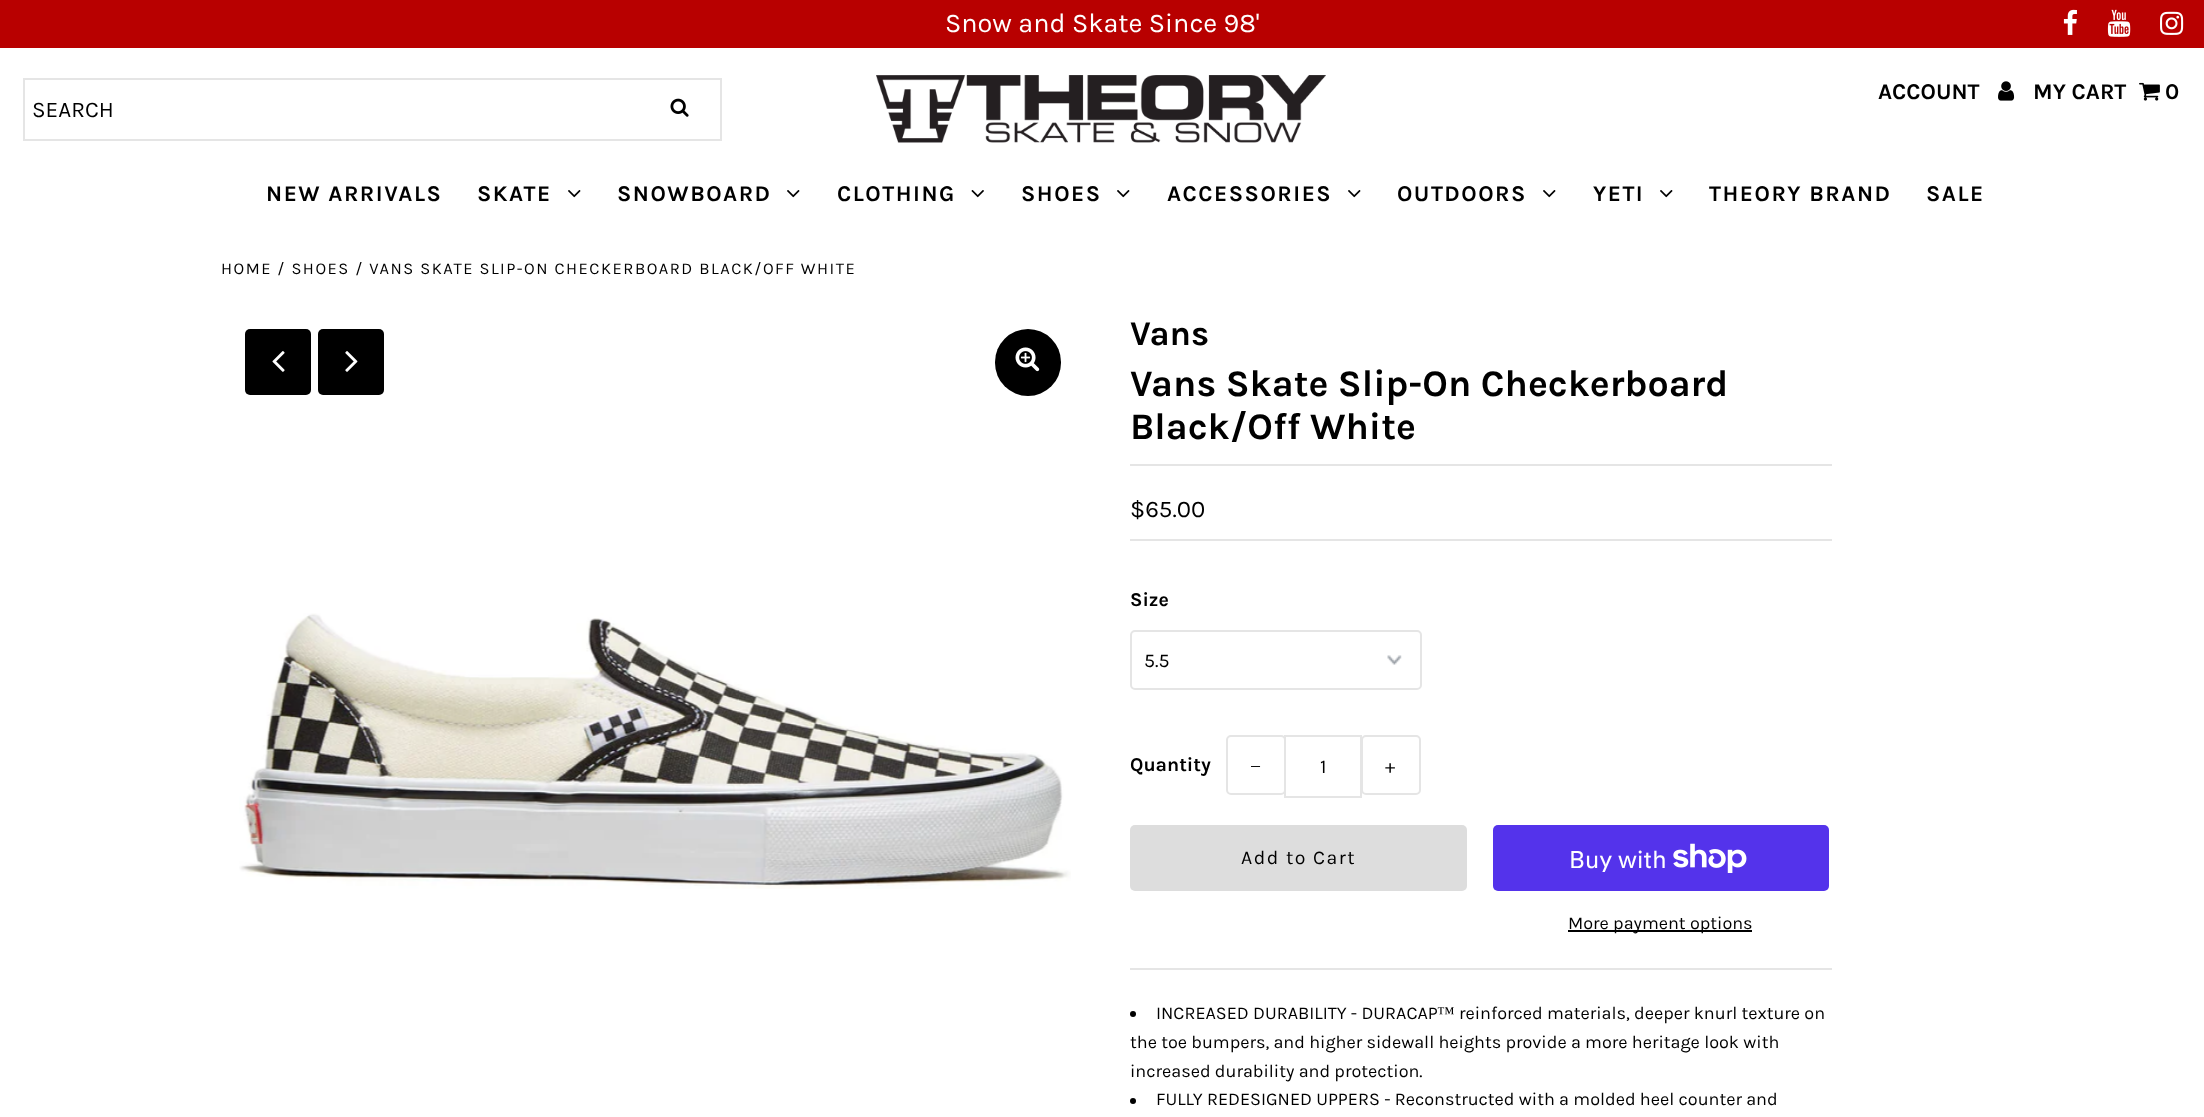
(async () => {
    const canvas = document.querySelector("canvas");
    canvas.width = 2204;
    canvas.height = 1117;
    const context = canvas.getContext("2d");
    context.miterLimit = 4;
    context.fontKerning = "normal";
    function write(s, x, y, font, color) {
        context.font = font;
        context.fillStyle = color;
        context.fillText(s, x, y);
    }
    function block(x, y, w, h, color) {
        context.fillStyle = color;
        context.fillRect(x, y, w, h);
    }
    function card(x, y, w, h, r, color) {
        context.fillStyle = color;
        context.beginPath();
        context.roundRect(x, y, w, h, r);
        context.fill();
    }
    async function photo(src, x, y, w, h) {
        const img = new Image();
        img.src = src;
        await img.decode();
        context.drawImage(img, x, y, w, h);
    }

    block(0, 0, 2204, 1117, "rgb(255, 255, 255)");
    block(0, 0, 2204, 48, "rgb(184, 0, 0)");
    write("Snow and Skate Since 98'", 945, 32, "27px Karla", "rgb(255, 255, 255)");
    await photo("media/1.png", 2063, 9, 14, 26);
    await photo("media/2.png", 2107, 9, 24, 28);
    await photo("media/3.png", 2160, 11, 24, 24);
    await photo("media/4.png", 876, 75, 450, 68);
    write("ACCOUNT", 1878, 99, "bold 22.5px Karla", "rgb(0, 0, 0)");
    await photo("media/5.png", 1998, 81, 17, 20);
    write("MY CART", 2033, 99, "bold 22.5px Karla", "rgb(0, 0, 0)");
    await photo("media/6.png", 2139, 82, 21, 19);
    write("0", 2165, 99, "bold 22.5px Karla", "rgb(0, 0, 0)");
    context.strokeStyle = "rgb(229, 229, 229)";
    context.lineWidth = 2;
    context.strokeRect(24, 79, 697, 61);
    write("SEARCH", 32, 117, "22.5px Karla", "rgb(0, 0, 0)");
    await photo("media/7.png", 670, 98, 19, 19);
    context.letterSpacing = "1.5px";
    write("NEW ARRIVALS", 266, 201, "bold 22.5px Karla", "rgb(0, 0, 0)");
    write("SKATE", 477, 201, "bold 22.5px Karla", "rgb(0, 0, 0)");
    await photo("media/8.png", 568, 190, 13, 8);
    write("SNOWBOARD", 617, 201, "bold 22.5px Karla", "rgb(0, 0, 0)");
    await photo("media/8.png", 787, 190, 13, 8);
    write("CLOTHING", 837, 201, "bold 22.5px Karla", "rgb(0, 0, 0)");
    await photo("media/9.png", 971, 190, 13, 8);
    write("SHOES", 1021, 201, "bold 22.5px Karla", "rgb(0, 0, 0)");
    await photo("media/8.png", 1117, 190, 13, 8);
    write("ACCESSORIES", 1167, 201, "bold 22.5px Karla", "rgb(0, 0, 0)");
    await photo("media/8.png", 1348, 190, 13, 8);
    write("OUTDOORS", 1397, 201, "bold 22.5px Karla", "rgb(0, 0, 0)");
    await photo("media/8.png", 1543, 190, 13, 8);
    write("YETI", 1593, 201, "bold 22.5px Karla", "rgb(0, 0, 0)");
    await photo("media/8.png", 1660, 190, 13, 8);
    write("THEORY BRAND", 1709, 201, "bold 22.5px Karla", "rgb(0, 0, 0)");
    write("SALE", 1926, 201, "bold 22.5px Karla", "rgb(0, 0, 0)");
    write("HOME / SHOES / VANS SKATE SLIP-ON CHECKERBOARD BLACK/OFF WHITE", 221, 274, "16.5px Karla", "rgb(0, 0, 0)");
    card(995, 329, 66, 67, 33, "rgb(0, 0, 0)");
    await photo("media/10.png", 1015, 347, 25, 25);
    await photo("media/11.png", 239, 613, 832, 276);
    card(245, 329, 66, 66, 5, "rgb(0, 0, 0)");
    await photo("media/12.png", 272, 351, 13, 21);
    card(318, 329, 66, 66, 5, "rgb(0, 0, 0)");
    await photo("media/13.png", 345, 351, 13, 21);
    context.letterSpacing = "0px";
    write("Vans", 1130, 345, "bold 34.5px Karla", "rgb(0, 0, 0)");
    write("Vans Skate Slip-On Checkerboard", 1130, 396, "bold 37.5px Karla", "rgb(0, 0, 0)");
    write("Black/Off White", 1130, 439, "bold 37.5px Karla", "rgb(0, 0, 0)");
    block(1130, 464, 702, 2, "rgb(229, 229, 229)");
    block(1130, 968, 702, 2, "rgb(229, 229, 229)");
    block(1130, 539, 702, 2, "rgb(229, 229, 229)");
    write("$65.00", 1130, 517, "24px Karla", "rgb(0, 0, 0)");
    write("Size", 1130, 606, "bold 19.5px Karla", "rgb(0, 0, 0)");
    await photo("media/14.png", 1387, 655, 15, 10);
    context.beginPath();
    context.roundRect(1131, 631, 290, 58, 4);
    context.stroke();
    write("5.5", 1144, 667, "19.5px Karla", "rgb(0, 0, 0)");
    write("Quantity", 1130, 771, "bold 19.5px Karla", "rgb(0, 0, 0)");
    context.beginPath();
    context.roundRect(1227, 736, 58, 58, 4);
    context.stroke();
    context.letterSpacing = "1.5px";
    write("−", 1250, 773, "19.5px Liberation Serif", "rgb(0, 0, 0)");
    context.strokeRect(1285, 736, 76, 61);
    context.letterSpacing = "0px";
    write("1", 1320, 773, "19.5px Karla", "rgb(0, 0, 0)");
    context.beginPath();
    context.roundRect(1362, 736, 58, 58, 4);
    context.stroke();
    context.letterSpacing = "1.5px";
    write("+", 1385, 773, "19.5px Karla", "rgb(0, 0, 0)");
    card(1130, 825, 337, 66, 5, "rgb(221, 221, 221)");
    write("Add to Cart", 1241, 864, "19.5px Karla", "rgb(0, 0, 0)");
    card(1493, 825, 336, 66, 5, "rgb(84, 51, 235)");
    context.letterSpacing = "0px";
    write("Buy with", 1569, 868, "24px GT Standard", "rgb(255, 255, 255)");
    await photo("media/15.png", 1673, 843, 74, 30);
    block(1568, 930, 184, 2, "rgb(0, 0, 0)");
    write("More payment options", 1568, 929, "18px Karla", "rgb(0, 0, 0)");
    context.beginPath();
    context.arc(1133, 1014, 3, 0, Math.PI * 2);
    context.fill();
    write("INCREASED DURABILITY - DURACAP", 1156, 1019, "18px Karla", "rgb(0, 0, 0)");
    write("™", 1437, 1019, "18px Liberation Serif", "rgb(0, 0, 0)");
    write("reinforced materials, deeper knurl texture on", 1459, 1019, "18px Karla", "rgb(0, 0, 0)");
    write("the toe bumpers, and higher sidewall heights provide a more heritage look with", 1130, 1048, "18px Karla", "rgb(0, 0, 0)");
    write("increased durability and protection.", 1130, 1077, "18px Karla", "rgb(0, 0, 0)");
    context.beginPath();
    context.arc(1133, 1101, 3, 0, Math.PI * 2);
    context.fill();
    write("FULLY REDESIGNED UPPERS - Reconstructed with a molded heel counter and", 1156, 1105, "18px Karla", "rgb(0, 0, 0)");
})();
